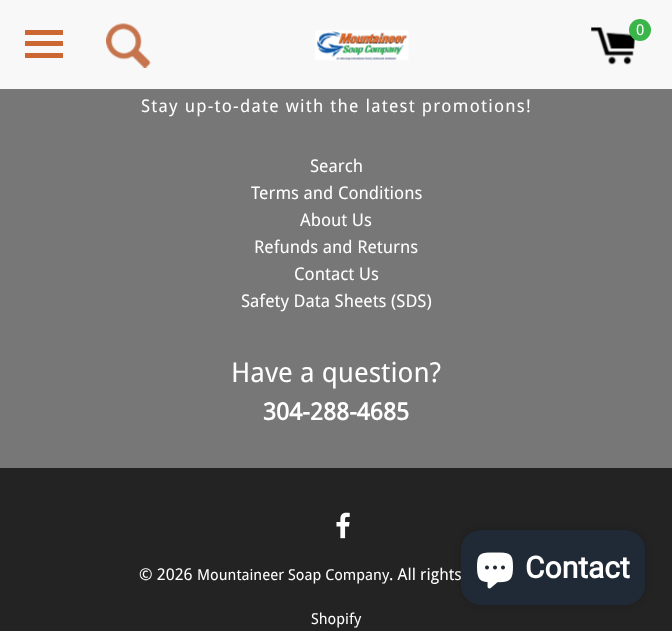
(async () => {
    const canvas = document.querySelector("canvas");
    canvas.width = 672;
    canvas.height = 631;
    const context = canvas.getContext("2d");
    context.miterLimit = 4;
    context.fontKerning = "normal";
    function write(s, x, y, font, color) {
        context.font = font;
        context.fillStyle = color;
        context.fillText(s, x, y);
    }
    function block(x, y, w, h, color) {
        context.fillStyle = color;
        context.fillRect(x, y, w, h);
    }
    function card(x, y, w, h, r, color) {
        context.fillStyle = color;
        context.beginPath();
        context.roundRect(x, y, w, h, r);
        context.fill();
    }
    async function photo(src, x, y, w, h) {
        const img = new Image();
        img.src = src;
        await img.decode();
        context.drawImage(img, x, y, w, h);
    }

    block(0, 0, 672, 631, "rgb(119, 119, 119)");
    block(0, 0, 672, 89, "rgb(248, 248, 248)");
    block(25, 30, 38, 5, "rgb(204, 102, 51)");
    block(25, 41, 38, 5, "rgb(204, 102, 51)");
    block(25, 53, 38, 5, "rgb(204, 102, 51)");
    await photo("media/1.png", 106, 23, 45, 45);
    await photo("media/2.png", 315, 30, 94, 31);
    await photo("media/3.png", 591, 27, 44, 38);
    context.fillStyle = "rgb(58, 181, 74)";
    context.beginPath();
    context.arc(640, 30, 11, 0, Math.PI * 2);
    context.fill();
    write("0", 636, 35, "15px Droid Sans", "rgb(255, 255, 255)");
    context.letterSpacing = "1.25px";
    write("Stay up-to-date with the latest promotions!", 141, 112, "17.5px Droid Sans", "rgb(255, 255, 255)");
    context.letterSpacing = "0px";
    write("Search", 310, 172, "17.5px Droid Sans", "rgb(255, 255, 255)");
    write("Terms and Conditions", 251, 199, "17.5px Droid Sans", "rgb(255, 255, 255)");
    write("About Us", 300, 226, "17.5px Droid Sans", "rgb(255, 255, 255)");
    write("Refunds and Returns", 254, 253, "17.5px Droid Sans", "rgb(255, 255, 255)");
    write("Contact Us", 294, 280, "17.5px Droid Sans", "rgb(255, 255, 255)");
    write("Safety Data Sheets (SDS)", 241, 307, "17.5px Droid Sans", "rgb(255, 255, 255)");
    write("Have a question?", 231, 382, "27.5px Droid Sans", "rgb(255, 255, 255)");
    write("304-288-4685", 263, 420, "bold 23.75px Droid Sans", "rgb(255, 255, 255)");
    block(0, 468, 672, 163, "rgb(35, 35, 35)");
    await photo("media/4.png", 336, 512, 14, 27);
    write("© 2026", 139, 580, "16.25px Droid Sans", "rgb(255, 255, 255)");
    write("Mountaineer Soap Company", 197, 580, "15px Droid Sans", "rgb(255, 255, 255)");
    write(". All rights", 389, 580, "16.25px Droid Sans", "rgb(255, 255, 255)");
    write("Shopify", 311, 624, "15px Droid Sans", "rgb(255, 255, 255)");
    context.fillStyle = "rgba(0, 0, 0, 0.15)";
    context.filter = "blur(3px)";
    context.beginPath();
    context.roundRect(461, 530, 184, 75, 20);
    context.fill();
    context.filter = "none";
    card(461, 530, 184, 75, 20, "rgb(32, 42, 54)");
    await photo("media/5.png", 477, 552, 36, 37);
    write("Contact", 525, 578, "bold 30px Roboto", "rgb(255, 255, 255)");
})();
